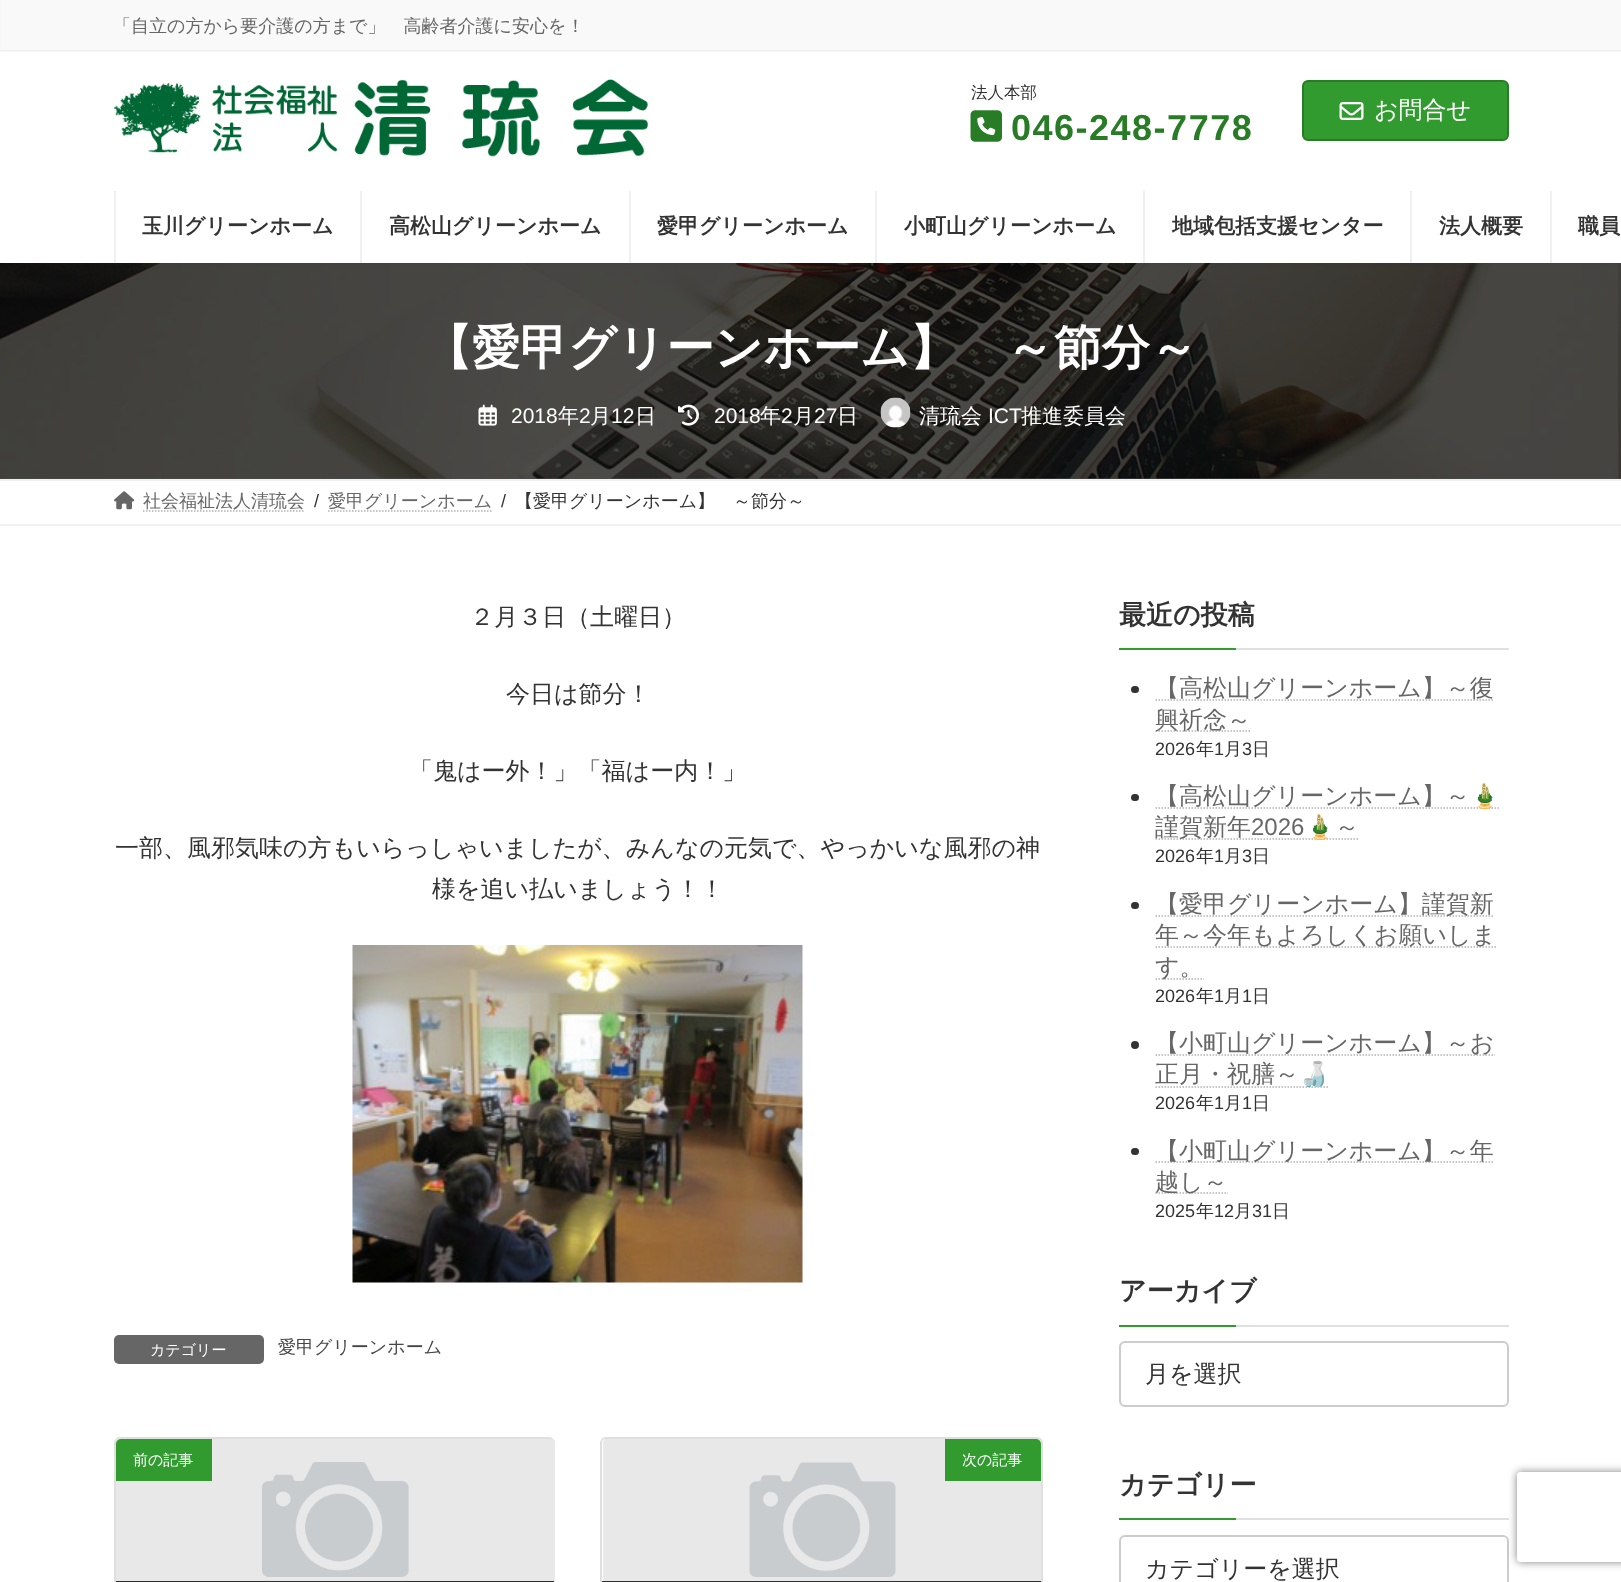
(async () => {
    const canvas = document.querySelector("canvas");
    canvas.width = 1621;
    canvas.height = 1582;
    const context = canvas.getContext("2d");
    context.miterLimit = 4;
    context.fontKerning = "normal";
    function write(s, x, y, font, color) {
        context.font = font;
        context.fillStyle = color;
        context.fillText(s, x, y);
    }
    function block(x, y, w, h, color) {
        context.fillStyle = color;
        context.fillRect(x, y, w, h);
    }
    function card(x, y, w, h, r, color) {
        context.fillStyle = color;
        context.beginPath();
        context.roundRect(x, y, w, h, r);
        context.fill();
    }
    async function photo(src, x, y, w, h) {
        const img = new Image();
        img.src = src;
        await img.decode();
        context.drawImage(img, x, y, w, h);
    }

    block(0, 0, 1621, 1582, "rgb(255, 255, 255)");
    block(0, 478, 1621, 1, "rgb(77, 77, 77)");
    await photo("media/4.png", 0, 263, 1621, 216);
    context.fillStyle = "rgba(0, 0, 0, 0.05)";
    context.filter = "blur(2px)";
    context.beginPath();
    context.rect(0, -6, 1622, 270);
    context.fill();
    context.filter = "none";
    block(0, 52, 1621, 211, "rgb(255, 255, 255)");
    block(0, 51, 1621, 1, "rgb(245, 245, 245)");
    block(1, 0, 1620, 50, "rgb(249, 249, 249)");
    block(0, 50, 1621, 1, "rgb(239, 239, 239)");
    write("「自立の方から要介護の方まで」　高齢者介護に安心を！", 113, 32, "500 18px WenQuanYi Zen Hei", "rgb(102, 102, 102)");
    await photo("media/1.png", 114, 79, 534, 78);
    write("法人本部", 971, 98, "500 16.5px WenQuanYi Zen Hei", "rgb(51, 51, 51)");
    await photo("media/2.png", 970, 110, 32, 32);
    context.letterSpacing = "1.5px";
    write("046-248-7778", 1011, 140, "bold 36px Liberation Sans", "rgb(40, 124, 38)");
    context.fillStyle = "rgb(50, 155, 48)";
    context.beginPath();
    context.roundRect(1303, 81, 205, 59, 5);
    context.fill();
    context.strokeStyle = "rgb(40, 124, 38)";
    context.lineWidth = 2;
    context.stroke();
    await photo("media/3.png", 1339, 102, 25, 18);
    context.letterSpacing = "0px";
    write("お問合せ", 1374, 118, "500 24px WenQuanYi Zen Hei", "rgb(255, 255, 255)");
    block(360, 191, 2, 72, "rgb(240, 240, 240)");
    block(114, 191, 2, 72, "rgb(240, 240, 240)");
    write("玉川グリーンホーム", 142, 233, "bold 21px WenQuanYi Zen Hei", "rgb(51, 51, 51)");
    block(629, 191, 2, 72, "rgb(240, 240, 240)");
    write("高松山グリーンホーム", 389, 233, "bold 21px WenQuanYi Zen Hei", "rgb(51, 51, 51)");
    block(875, 191, 2, 72, "rgb(240, 240, 240)");
    write("愛甲グリーンホーム", 657, 233, "bold 21px WenQuanYi Zen Hei", "rgb(51, 51, 51)");
    block(1143, 191, 2, 72, "rgb(240, 240, 240)");
    write("小町山グリーンホーム", 904, 233, "bold 21px WenQuanYi Zen Hei", "rgb(51, 51, 51)");
    block(1410, 191, 2, 72, "rgb(240, 240, 240)");
    write("地域包括支援センター", 1172, 233, "bold 21px WenQuanYi Zen Hei", "rgb(51, 51, 51)");
    block(1550, 191, 2, 72, "rgb(240, 240, 240)");
    write("法人概要", 1439, 233, "bold 21px WenQuanYi Zen Hei", "rgb(51, 51, 51)");
    write("職員", 1578, 233, "bold 21px WenQuanYi Zen Hei", "rgb(51, 51, 51)");
    write("【愛甲グリーンホーム】　～節分～", 424, 364, "bold 48px WenQuanYi Zen Hei", "rgb(255, 255, 255)");
    await photo("media/5.png", 478, 404, 19, 22);
    write("2018", 511, 423, "21px Liberation Sans", "rgb(255, 255, 255)");
    write("年", 558, 423, "500 21px WenQuanYi Zen Hei", "rgb(255, 255, 255)");
    write("2", 579, 423, "21px Liberation Sans", "rgb(255, 255, 255)");
    write("月", 590, 423, "500 21px WenQuanYi Zen Hei", "rgb(255, 255, 255)");
    write("12", 611, 423, "21px Liberation Sans", "rgb(255, 255, 255)");
    write("日", 635, 423, "500 21px WenQuanYi Zen Hei", "rgb(255, 255, 255)");
    await photo("media/6.png", 678, 404, 21, 22);
    write("2018", 714, 423, "21px Liberation Sans", "rgb(255, 255, 255)");
    write("年", 760, 423, "500 21px WenQuanYi Zen Hei", "rgb(255, 255, 255)");
    write("2", 781, 423, "21px Liberation Sans", "rgb(255, 255, 255)");
    write("月", 793, 423, "500 21px WenQuanYi Zen Hei", "rgb(255, 255, 255)");
    write("27", 814, 423, "21px Liberation Sans", "rgb(255, 255, 255)");
    write("日", 837, 423, "500 21px WenQuanYi Zen Hei", "rgb(255, 255, 255)");
    await photo("media/7.png", 880, 397, 31, 31);
    write("清琉会", 919, 423, "500 21px WenQuanYi Zen Hei", "rgb(255, 255, 255)");
    write("ICT", 988, 423, "21px Liberation Sans", "rgb(255, 255, 255)");
    write("推進委員会", 1021, 423, "500 21px WenQuanYi Zen Hei", "rgb(255, 255, 255)");
    block(0, 479, 1621, 2, "rgb(240, 240, 240)");
    block(0, 524, 1621, 2, "rgb(240, 240, 240)");
    await photo("media/8.png", 114, 491, 21, 19);
    write("社会福祉法人清琉会", 143, 507, "500 18px WenQuanYi Zen Hei", "rgb(102, 102, 102)");
    context.beginPath();
    context.moveTo(143, 511);
    context.lineTo(305, 511);
    context.strokeStyle = "rgb(179, 179, 179)";
    context.lineWidth = 1.5;
    context.setLineDash([1.5, 1.5]);
    context.stroke();
    write("/", 314, 507, "18px Liberation Sans", "rgb(51, 51, 51)");
    write("愛甲グリーンホーム", 328, 507, "500 18px WenQuanYi Zen Hei", "rgb(102, 102, 102)");
    context.beginPath();
    context.moveTo(328, 511);
    context.lineTo(492, 511);
    context.stroke();
    write("/", 501, 507, "18px Liberation Sans", "rgb(51, 51, 51)");
    write("【愛甲グリーンホーム】　～節分～", 515, 507, "500 18px WenQuanYi Zen Hei", "rgb(51, 51, 51)");
    write("２月３日（土曜日）", 470, 625, "500 24px WenQuanYi Zen Hei", "rgb(51, 51, 51)");
    write("今日は節分！", 506, 702, "500 24px WenQuanYi Zen Hei", "rgb(51, 51, 51)");
    write("「鬼はー外！」「福はー内！」", 409, 779, "500 24px WenQuanYi Zen Hei", "rgb(51, 51, 51)");
    write("一部、風邪気味の方もいらっしゃいましたが、みんなの元気で、やっかいな風邪の神", 115, 856, "500 24px WenQuanYi Zen Hei", "rgb(51, 51, 51)");
    write("様を追い払いましょう！！", 432, 897, "500 24px WenQuanYi Zen Hei", "rgb(51, 51, 51)");
    await photo("media/9.png", 352, 945, 451, 338);
    card(114, 1335, 150, 29, 5, "rgb(102, 102, 102)");
    write("カテゴリー", 150, 1355, "500 15px WenQuanYi Zen Hei", "rgb(255, 255, 255)");
    write("愛甲グリーンホーム", 278, 1353, "500 18px WenQuanYi Zen Hei", "rgb(70, 70, 70)");
    context.beginPath();
    context.roundRect(115, 1438, 439, 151, 5);
    context.strokeStyle = "rgb(223, 223, 223)";
    context.lineWidth = 2;
    context.setLineDash([]);
    context.stroke();
    await photo("media/10.png", 116, 1439, 439, 143);
    context.fillStyle = "rgb(50, 155, 48)";
    context.beginPath();
    context.roundRect(116, 1439, 96, 42, [5, 0, 0, 0]);
    context.fill();
    write("前の記事", 133, 1465, "500 15px WenQuanYi Zen Hei", "rgb(255, 255, 255)");
    block(116, 1581, 438, 1, "rgb(46, 46, 46)");
    context.beginPath();
    context.roundRect(601, 1438, 441, 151, 5);
    context.stroke();
    await photo("media/11.png", 603, 1439, 438, 143);
    context.fillStyle = "rgb(50, 155, 48)";
    context.beginPath();
    context.roundRect(945, 1439, 96, 42, [0, 5, 0, 0]);
    context.fill();
    write("次の記事", 962, 1465, "500 15px WenQuanYi Zen Hei", "rgb(255, 255, 255)");
    block(602, 1581, 439, 1, "rgba(0, 0, 0, 0.8)");
    block(1236, 648, 273, 2, "rgb(224, 224, 224)");
    write("最近の投稿", 1119, 624, "bold 27px WenQuanYi Zen Hei", "rgb(51, 51, 51)");
    block(1119, 648, 117, 2, "rgb(50, 155, 48)");
    card(1131, 686, 8, 7, 3.5, "rgb(51, 51, 51)");
    context.beginPath();
    context.moveTo(1155.5, 700);
    context.lineTo(1494.5, 700);
    context.strokeStyle = "rgb(179, 179, 179)";
    context.lineWidth = 1.5;
    context.setLineDash([1.5, 1.5]);
    context.stroke();
    write("【高松山グリーンホーム】～復", 1155, 696, "500 24px WenQuanYi Zen Hei", "rgb(102, 102, 102)");
    context.beginPath();
    context.moveTo(1155.5, 731);
    context.lineTo(1251.5, 731);
    context.stroke();
    write("興祈念～", 1155, 728, "500 24px WenQuanYi Zen Hei", "rgb(102, 102, 102)");
    write("2026", 1155, 755, "18px Liberation Sans", "rgb(51, 51, 51)");
    write("年", 1196, 755, "500 18px WenQuanYi Zen Hei", "rgb(51, 51, 51)");
    write("1", 1214, 755, "18px Liberation Sans", "rgb(51, 51, 51)");
    write("月", 1224, 755, "500 18px WenQuanYi Zen Hei", "rgb(51, 51, 51)");
    write("3", 1242, 755, "18px Liberation Sans", "rgb(51, 51, 51)");
    write("日", 1252, 755, "500 18px WenQuanYi Zen Hei", "rgb(51, 51, 51)");
    card(1131, 794, 8, 7, 3.5, "rgb(51, 51, 51)");
    context.beginPath();
    context.moveTo(1155.5, 808);
    context.lineTo(1500, 808);
    context.stroke();
    write("【高松山グリーンホーム】～", 1155, 804, "500 24px WenQuanYi Zen Hei", "rgb(102, 102, 102)");
    write("🎍", 1470, 804, "24px Noto Color Emoji", "rgb(102, 102, 102)");
    context.beginPath();
    context.moveTo(1155.5, 839);
    context.lineTo(1358.5, 839);
    context.stroke();
    write("謹賀新年", 1155, 835, "500 24px WenQuanYi Zen Hei", "rgb(102, 102, 102)");
    write("2026", 1251, 835, "24px Liberation Sans", "rgb(102, 102, 102)");
    write("🎍", 1305, 835, "24px Noto Color Emoji", "rgb(102, 102, 102)");
    write("～", 1335, 835, "500 24px WenQuanYi Zen Hei", "rgb(102, 102, 102)");
    write("2026", 1155, 862, "18px Liberation Sans", "rgb(51, 51, 51)");
    write("年", 1196, 862, "500 18px WenQuanYi Zen Hei", "rgb(51, 51, 51)");
    write("1", 1214, 862, "18px Liberation Sans", "rgb(51, 51, 51)");
    write("月", 1224, 862, "500 18px WenQuanYi Zen Hei", "rgb(51, 51, 51)");
    write("3", 1242, 862, "18px Liberation Sans", "rgb(51, 51, 51)");
    write("日", 1252, 862, "500 18px WenQuanYi Zen Hei", "rgb(51, 51, 51)");
    card(1131, 902, 8, 7, 3.5, "rgb(51, 51, 51)");
    context.beginPath();
    context.moveTo(1155.5, 916);
    context.lineTo(1494.5, 916);
    context.stroke();
    write("【愛甲グリーンホーム】謹賀新", 1155, 912, "500 24px WenQuanYi Zen Hei", "rgb(102, 102, 102)");
    context.beginPath();
    context.moveTo(1155.5, 947);
    context.lineTo(1496.5, 947);
    context.stroke();
    write("年～今年もよろしくお願いしま", 1155, 943, "500 24px WenQuanYi Zen Hei", "rgb(102, 102, 102)");
    context.beginPath();
    context.moveTo(1155.5, 979);
    context.lineTo(1204, 979);
    context.stroke();
    write("す。", 1155, 975, "500 24px WenQuanYi Zen Hei", "rgb(102, 102, 102)");
    write("2026", 1155, 1002, "18px Liberation Sans", "rgb(51, 51, 51)");
    write("年", 1196, 1002, "500 18px WenQuanYi Zen Hei", "rgb(51, 51, 51)");
    write("1", 1214, 1002, "18px Liberation Sans", "rgb(51, 51, 51)");
    write("月", 1224, 1002, "500 18px WenQuanYi Zen Hei", "rgb(51, 51, 51)");
    write("1", 1242, 1002, "18px Liberation Sans", "rgb(51, 51, 51)");
    write("日", 1252, 1002, "500 18px WenQuanYi Zen Hei", "rgb(51, 51, 51)");
    context.beginPath();
    context.arc(1135, 1045, 4, 0, Math.PI * 2);
    context.fill();
    context.beginPath();
    context.moveTo(1155.5, 1055);
    context.lineTo(1495, 1055);
    context.stroke();
    write("【小町山グリーンホーム】～お", 1155, 1051, "500 24px WenQuanYi Zen Hei", "rgb(102, 102, 102)");
    write("正月・祝膳～", 1155, 1082, "500 24px WenQuanYi Zen Hei", "rgb(102, 102, 102)");
    context.beginPath();
    context.moveTo(1155.5, 1087);
    context.lineTo(1329.5, 1087);
    context.stroke();
    write("🍶", 1299, 1082, "24px Noto Color Emoji", "rgb(102, 102, 102)");
    write("2026", 1155, 1109, "18px Liberation Sans", "rgb(51, 51, 51)");
    write("年", 1196, 1109, "500 18px WenQuanYi Zen Hei", "rgb(51, 51, 51)");
    write("1", 1214, 1109, "18px Liberation Sans", "rgb(51, 51, 51)");
    write("月", 1224, 1109, "500 18px WenQuanYi Zen Hei", "rgb(51, 51, 51)");
    write("1", 1242, 1109, "18px Liberation Sans", "rgb(51, 51, 51)");
    write("日", 1252, 1109, "500 18px WenQuanYi Zen Hei", "rgb(51, 51, 51)");
    card(1131, 1148, 8, 7, 3.5, "rgb(51, 51, 51)");
    context.beginPath();
    context.moveTo(1155.5, 1162);
    context.lineTo(1494.5, 1162);
    context.stroke();
    write("【小町山グリーンホーム】～年", 1155, 1159, "500 24px WenQuanYi Zen Hei", "rgb(102, 102, 102)");
    context.beginPath();
    context.moveTo(1155.5, 1193);
    context.lineTo(1228, 1193);
    context.stroke();
    write("越し～", 1155, 1190, "500 24px WenQuanYi Zen Hei", "rgb(102, 102, 102)");
    write("2025", 1155, 1217, "18px Liberation Sans", "rgb(51, 51, 51)");
    write("年", 1196, 1217, "500 18px WenQuanYi Zen Hei", "rgb(51, 51, 51)");
    write("12", 1214, 1217, "18px Liberation Sans", "rgb(51, 51, 51)");
    write("月", 1234, 1217, "500 18px WenQuanYi Zen Hei", "rgb(51, 51, 51)");
    write("31", 1252, 1217, "18px Liberation Sans", "rgb(51, 51, 51)");
    write("日", 1272, 1217, "500 18px WenQuanYi Zen Hei", "rgb(51, 51, 51)");
    block(1236, 1325, 273, 2, "rgb(224, 224, 224)");
    write("アーカイブ", 1119, 1300, "bold 27px WenQuanYi Zen Hei", "rgb(51, 51, 51)");
    block(1119, 1325, 117, 2, "rgb(50, 155, 48)");
    context.beginPath();
    context.roundRect(1120, 1342, 388, 64, 5);
    context.strokeStyle = "rgb(204, 204, 204)";
    context.lineWidth = 2;
    context.setLineDash([]);
    context.stroke();
    write("月を選択", 1145, 1382, "500 24px WenQuanYi Zen Hei", "rgb(51, 51, 51)");
    block(1236, 1518, 273, 2, "rgb(224, 224, 224)");
    write("カテゴリー", 1119, 1494, "bold 27px WenQuanYi Zen Hei", "rgb(51, 51, 51)");
    block(1119, 1518, 117, 2, "rgb(50, 155, 48)");
    context.beginPath();
    context.roundRect(1120, 1536, 388, 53, 5);
    context.stroke();
    write("カテゴリーを選択", 1145, 1577, "500 24px WenQuanYi Zen Hei", "rgb(51, 51, 51)");
    context.save();
    context.beginPath();
    context.moveTo(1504, 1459);
    context.lineTo(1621, 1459);
    context.lineTo(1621, 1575);
    context.lineTo(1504, 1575);
    context.closePath();
    context.moveTo(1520, 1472);
    context.lineTo(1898, 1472);
    context.bezierCurveTo(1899.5, 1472, 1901, 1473.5, 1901, 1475);
    context.lineTo(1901, 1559);
    context.bezierCurveTo(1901, 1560.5, 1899.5, 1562, 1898, 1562);
    context.lineTo(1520, 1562);
    context.bezierCurveTo(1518.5, 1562, 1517, 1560.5, 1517, 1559);
    context.lineTo(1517, 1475);
    context.bezierCurveTo(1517, 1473.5, 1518.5, 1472, 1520, 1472);
    context.closePath();
    context.clip("evenodd");
    context.fillStyle = "rgb(128, 128, 128)";
    context.filter = "blur(4px)";
    context.beginPath();
    context.roundRect(1517, 1472, 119, 90, 3);
    context.fill();
    context.filter = "none";
    context.restore();
})();
